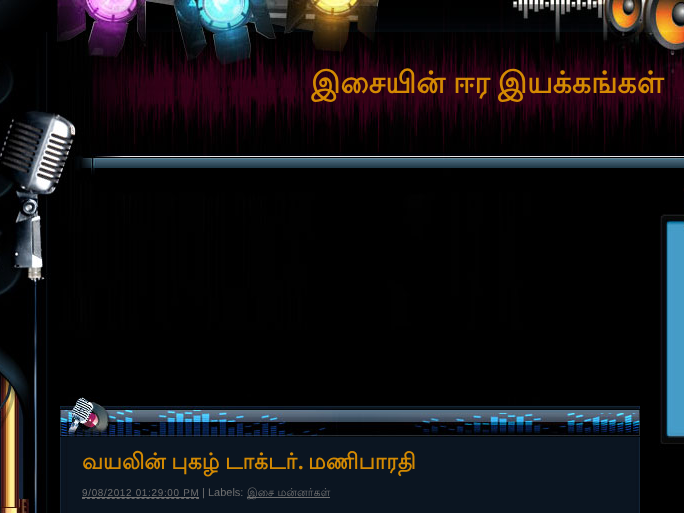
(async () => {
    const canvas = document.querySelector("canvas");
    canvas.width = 684;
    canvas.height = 513;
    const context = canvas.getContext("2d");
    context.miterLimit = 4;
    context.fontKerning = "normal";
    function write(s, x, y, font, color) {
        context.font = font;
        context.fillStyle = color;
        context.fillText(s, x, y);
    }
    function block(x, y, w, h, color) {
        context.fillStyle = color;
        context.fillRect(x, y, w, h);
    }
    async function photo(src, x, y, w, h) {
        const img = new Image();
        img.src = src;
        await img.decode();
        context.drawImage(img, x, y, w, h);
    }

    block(0, 0, 684, 513, "rgb(255, 255, 255)");
    await photo("media/1.png", 0, 0, 684, 298);
    await photo("media/2.png", 0, 298, 684, 215);
    context.wordSpacing = "-1px";
    write("இசையின் ஈர இயக்கங்கள்", 311, 93, "bold 30px Lohit Tamil", "rgb(212, 138, 2)");
    await photo("media/3.png", 60, 437, 580, 76);
    await photo("media/4.png", 60, 397, 580, 40);
    write("வயலின் புகழ் டாக்டர்", 82, 469, "bold 22px Lohit Tamil", "rgb(212, 138, 2)");
    context.wordSpacing = "0px";
    write(".", 298, 469, "bold 22px Liberation Serif", "rgb(212, 138, 2)");
    write("மணிபாரதி", 308, 469, "bold 22px Lohit Tamil", "rgb(212, 138, 2)");
    context.letterSpacing = "0.7px";
    write("9/08/2012 01:29:00 PM", 82, 496, "9.9px Liberation Sans", "rgb(112, 112, 112)");
    context.beginPath();
    context.moveTo(82, 498.5);
    context.lineTo(199, 498.5);
    context.strokeStyle = "rgb(102, 102, 102)";
    context.setLineDash([3, 1.96]);
    context.stroke();
    block(82, 497, 117, 1, "rgb(112, 112, 112)");
    context.letterSpacing = "0px";
    write("| Labels:", 202, 496, "11px Liberation Sans", "rgb(112, 112, 112)");
    block(247, 497, 83, 1, "rgb(112, 112, 112)");
    write("இசை மன்னர்கள்", 247, 496, "11px Lohit Tamil", "rgb(112, 112, 112)");
})();
